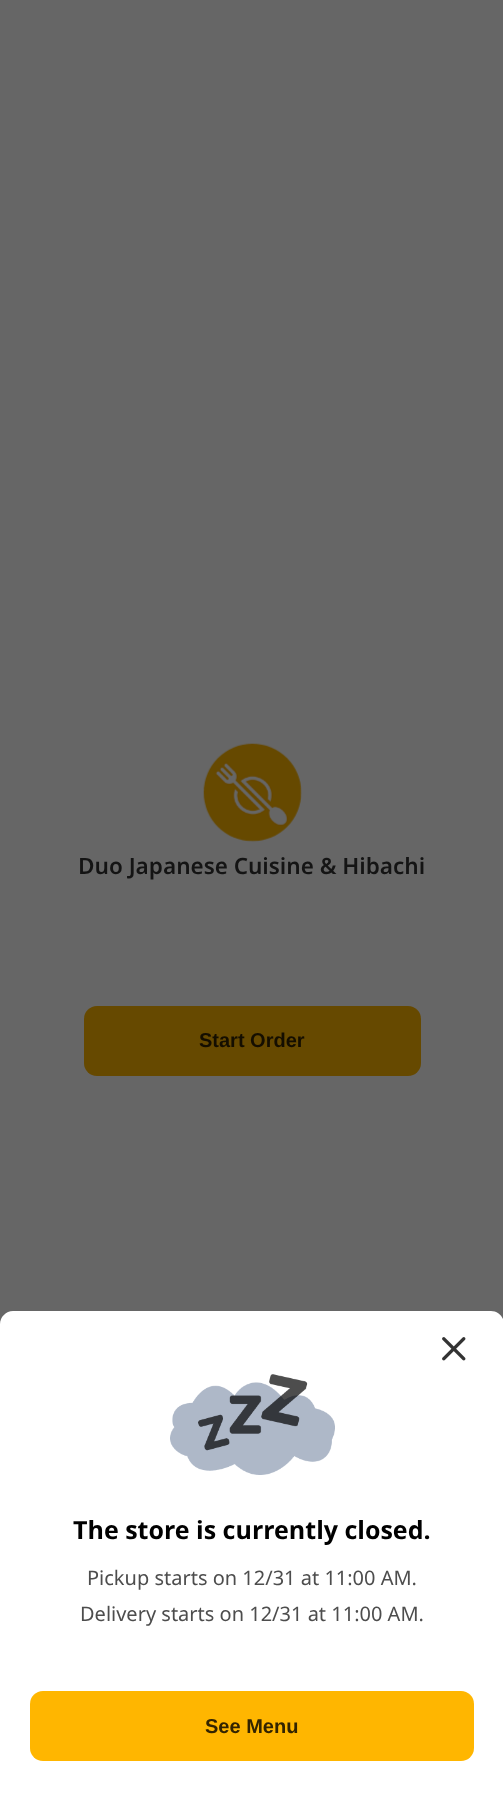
(async () => {
    const canvas = document.querySelector("canvas");
    canvas.width = 503;
    canvas.height = 1798;
    const context = canvas.getContext("2d");
    context.miterLimit = 4;
    context.fontKerning = "normal";
    function write(s, x, y, font, color) {
        context.font = font;
        context.fillStyle = color;
        context.fillText(s, x, y);
    }
    function block(x, y, w, h, color) {
        context.fillStyle = color;
        context.fillRect(x, y, w, h);
    }
    function card(x, y, w, h, r, color) {
        context.fillStyle = color;
        context.beginPath();
        context.roundRect(x, y, w, h, r);
        context.fill();
    }
    async function photo(src, x, y, w, h) {
        const img = new Image();
        img.src = src;
        await img.decode();
        context.drawImage(img, x, y, w, h);
    }

    block(0, 0, 503, 1798, "rgb(102, 102, 102)");
    await photo("media/1.png", 203, 743, 99, 99);
    write("Duo Japanese Cuisine & Hibachi", 78, 874, "600 22.5px Noto Sans", "rgb(20, 20, 20)");
    card(84, 1006, 337, 70, 13, "rgb(102, 73, 0)");
    write("Start Order", 199, 1047, "bold 20px Liberation Sans", "rgb(20, 14, 0)");
    context.fillStyle = "rgb(255, 255, 255)";
    context.beginPath();
    context.moveTo(13, 1311);
    context.lineTo(491, 1311);
    context.bezierCurveTo(498, 1311, 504, 1317, 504, 1324);
    context.lineTo(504, 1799);
    context.lineTo(0, 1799);
    context.lineTo(0, 1324);
    context.bezierCurveTo(0, 1317, 6, 1311, 13, 1311);
    context.closePath();
    context.fill();
    await photo("media/2.png", 442, 1337, 24, 24);
    await photo("media/3.png", 170, 1374, 165, 101);
    write("The store is currently closed.", 73, 1539, "bold 25px Noto Sans", "rgb(0, 0, 0)");
    write("Pickup starts on 12/31 at 11:00 AM.", 87, 1585, "20px Noto Sans", "rgb(77, 77, 77)");
    write("Delivery starts on 12/31 at 11:00 AM.", 80, 1621, "20px Noto Sans", "rgb(77, 77, 77)");
    card(30, 1691, 444, 70, 13, "rgb(255, 182, 0)");
    write("See Menu", 205, 1733, "bold 20px Liberation Sans", "rgb(51, 36, 0)");
})();
